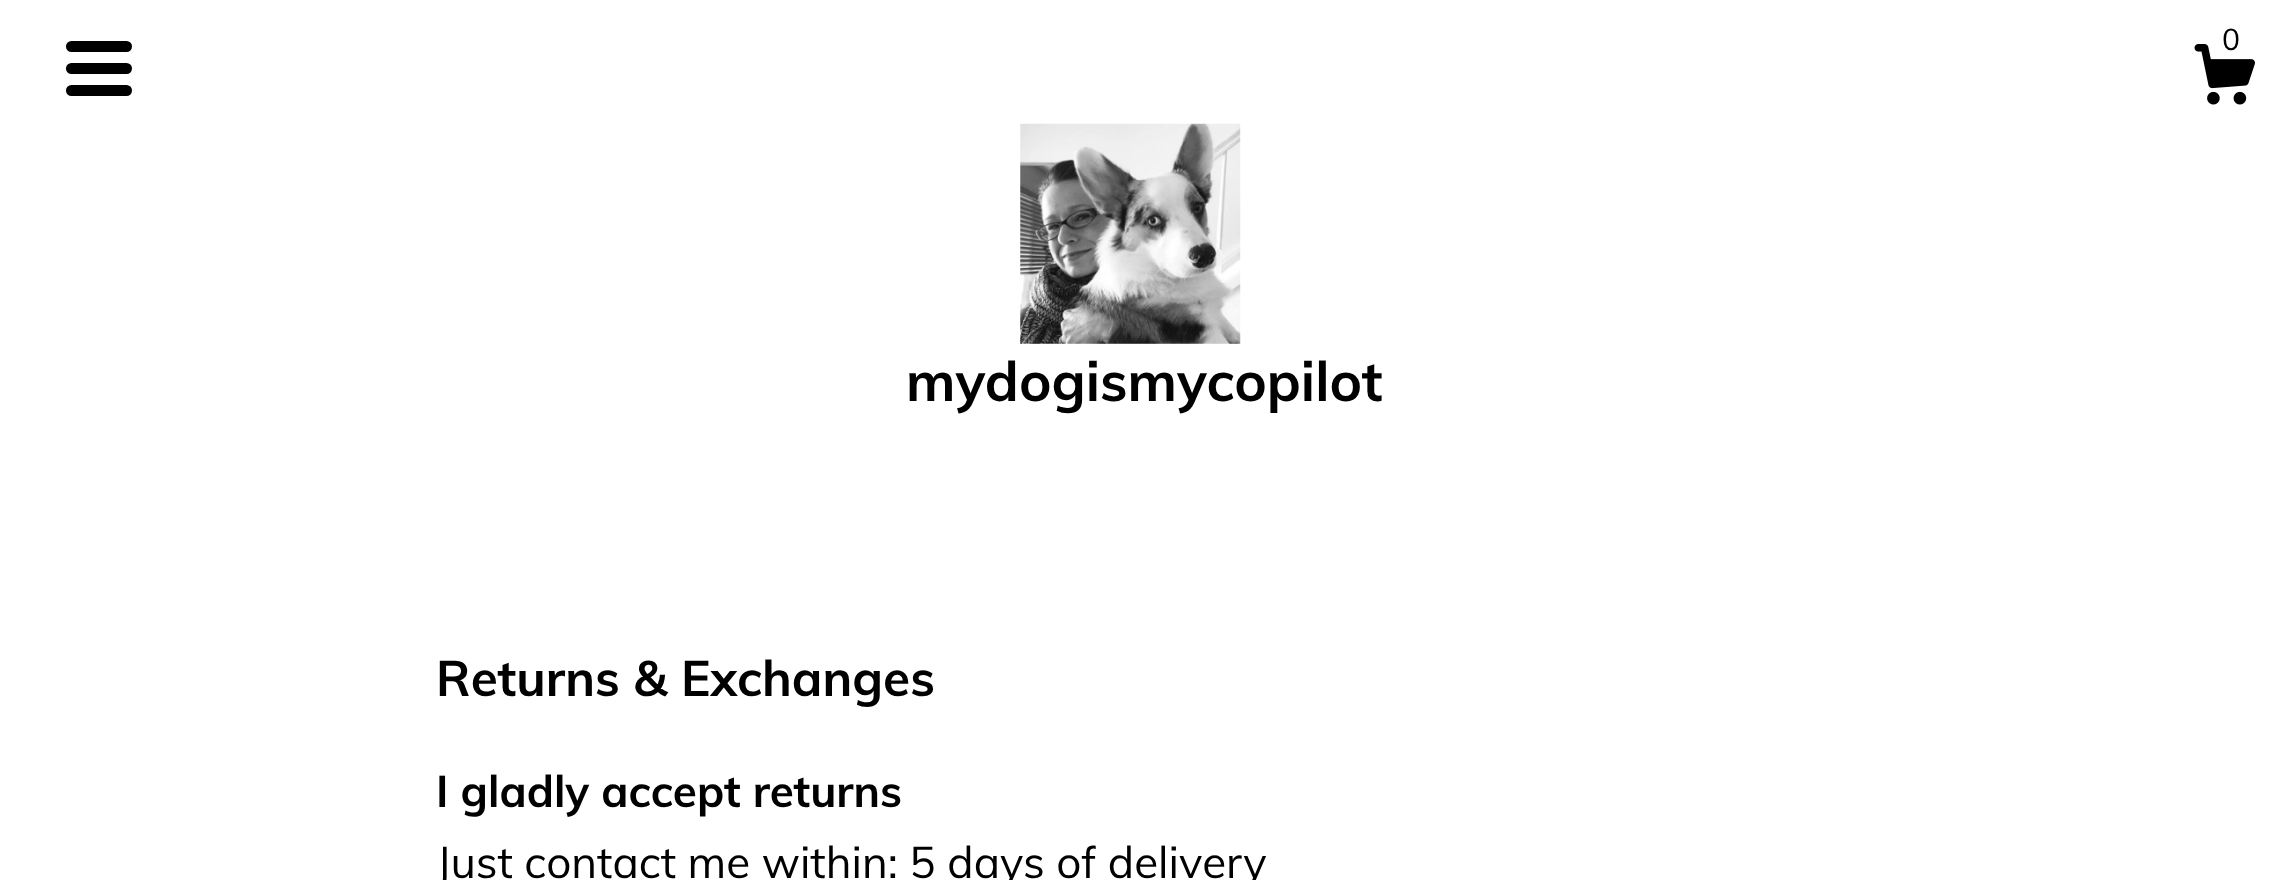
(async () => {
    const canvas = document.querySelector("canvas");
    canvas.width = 2287;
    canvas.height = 880;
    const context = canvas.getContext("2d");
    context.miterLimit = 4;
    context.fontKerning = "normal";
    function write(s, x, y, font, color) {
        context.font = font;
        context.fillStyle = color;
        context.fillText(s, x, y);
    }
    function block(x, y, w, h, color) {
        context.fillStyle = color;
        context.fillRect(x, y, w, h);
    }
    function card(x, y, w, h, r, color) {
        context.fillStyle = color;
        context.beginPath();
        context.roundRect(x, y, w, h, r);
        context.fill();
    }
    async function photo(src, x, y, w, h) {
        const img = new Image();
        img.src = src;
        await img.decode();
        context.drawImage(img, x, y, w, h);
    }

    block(0, 0, 2287, 880, "rgb(255, 255, 255)");
    card(66, 41, 66, 11, 5.5, "rgb(0, 0, 0)");
    card(66, 63, 66, 11, 5.5, "rgb(0, 0, 0)");
    card(66, 85, 66, 11, 5.5, "rgb(0, 0, 0)");
    await photo("media/1.png", 2194, 44, 61, 61);
    write("0", 2222, 50, "30px Muli", "rgb(0, 0, 0)");
    await photo("media/2.png", 1020, 123, 221, 221);
    write("mydogismycopilot", 906, 401, "bold 55px Muli", "rgb(0, 0, 0)");
    write("Returns & Exchanges", 436, 696, "bold 49.5px Muli", "rgb(0, 0, 0)");
    write("I gladly accept returns", 436, 807, "bold 44px Muli", "rgb(0, 0, 0)");
    write("Just contact me within: 5 days of delivery", 436, 878, "44px Muli", "rgb(0, 0, 0)");
})();
